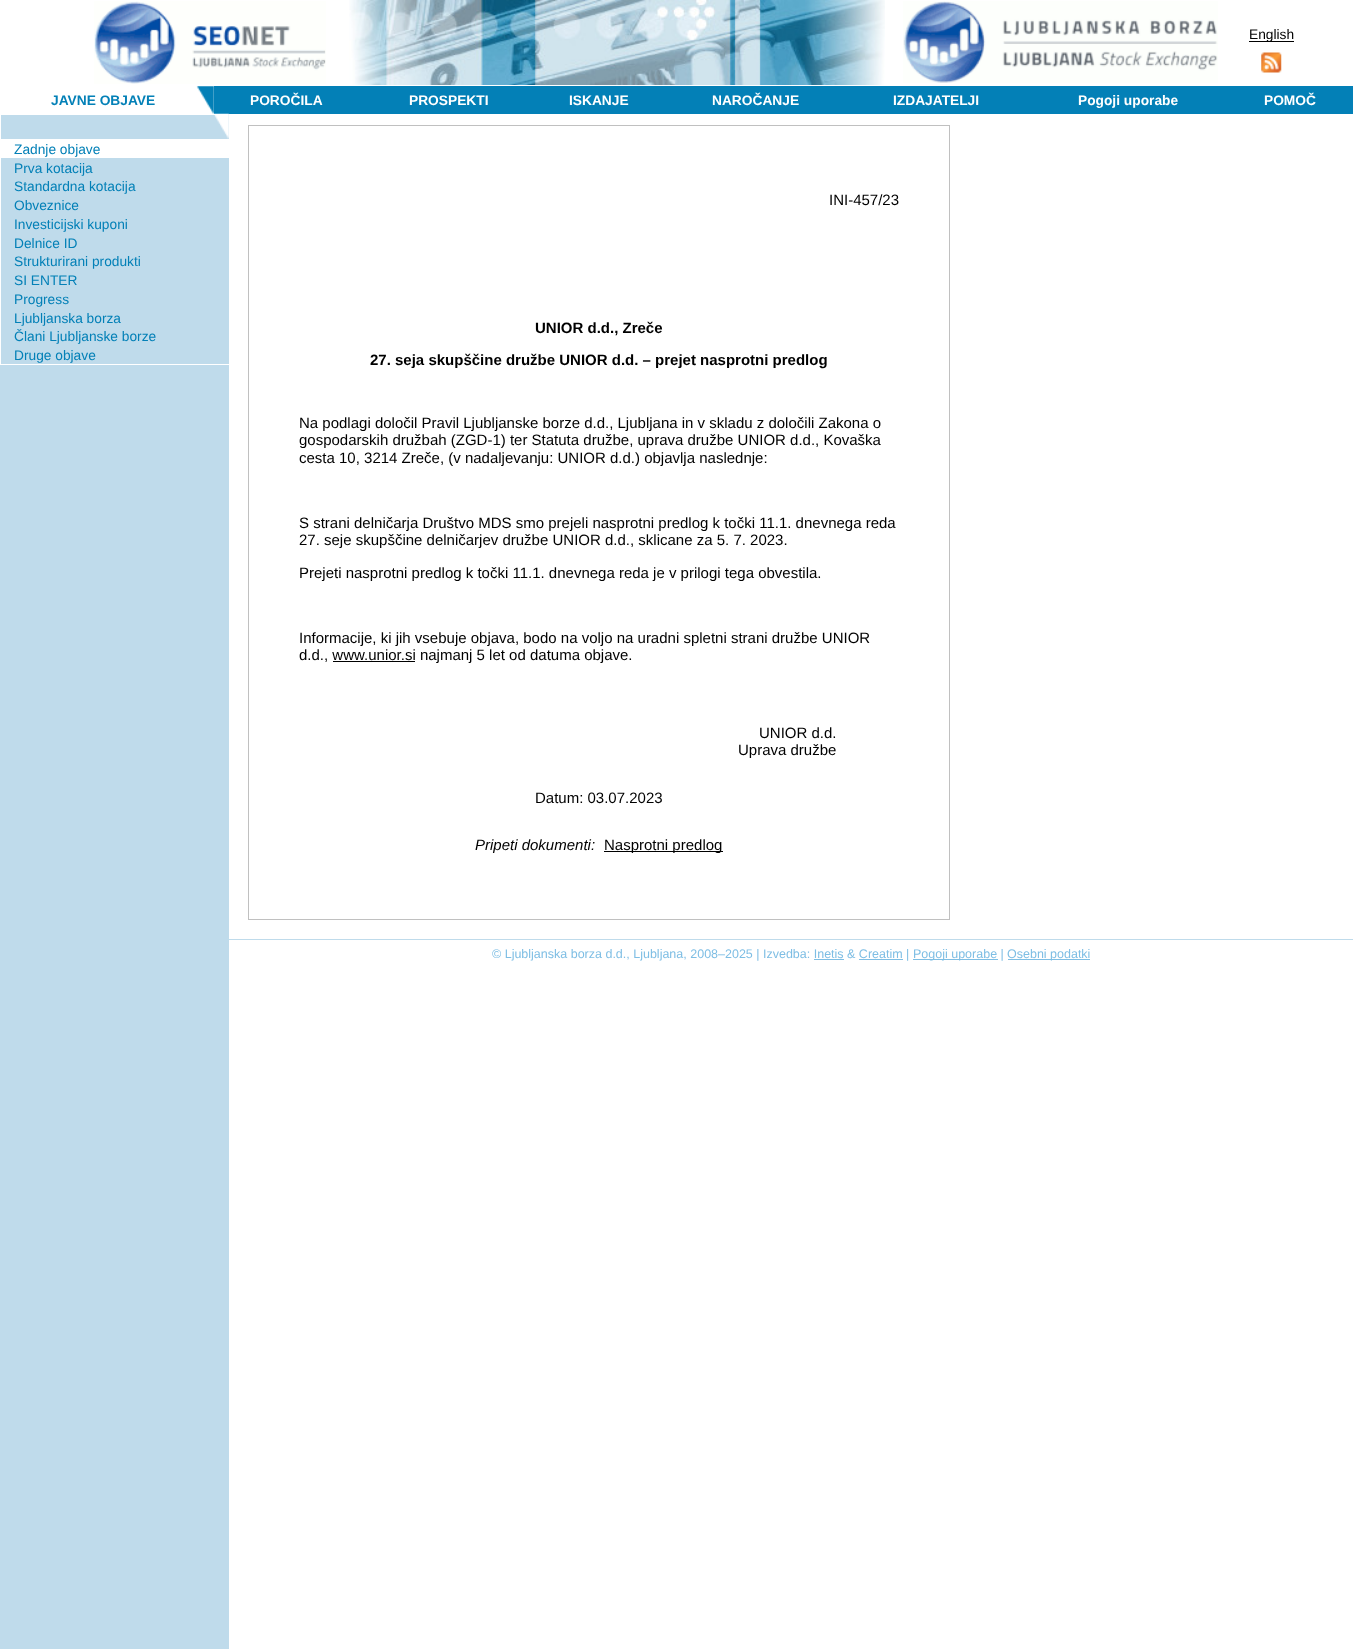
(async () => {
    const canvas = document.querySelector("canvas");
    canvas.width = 1353;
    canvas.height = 1649;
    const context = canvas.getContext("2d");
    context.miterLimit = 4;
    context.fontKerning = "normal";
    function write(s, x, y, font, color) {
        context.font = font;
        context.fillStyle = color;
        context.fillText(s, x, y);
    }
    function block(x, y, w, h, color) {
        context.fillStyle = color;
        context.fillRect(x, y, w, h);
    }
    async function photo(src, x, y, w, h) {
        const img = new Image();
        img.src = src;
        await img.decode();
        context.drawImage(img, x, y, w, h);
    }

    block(0, 0, 1353, 1649, "rgb(255, 255, 255)");
    await photo("media/1.png", 94, 1, 232, 83);
    await photo("media/2.png", 349, 0, 536, 85);
    await photo("media/3.png", 903, 1, 315, 82);
    block(1249, 41, 45, 1, "rgb(0, 0, 0)");
    write("English", 1249, 39, "13.75px Liberation Sans", "rgb(0, 0, 0)");
    await photo("media/4.png", 1261, 52, 21, 21);
    block(0, 114, 229, 1535, "rgb(191, 219, 235)");
    await photo("media/5.png", 196, 86, 18, 28);
    write("JAVNE OBJAVE", 51, 105, "bold 13.75px Liberation Sans", "rgb(3, 128, 183)");
    block(214, 86, 1139, 28, "rgb(3, 128, 183)");
    write("POROČILA", 250, 105, "bold 13.75px Liberation Sans", "rgb(255, 255, 255)");
    write("PROSPEKTI", 409, 105, "bold 13.75px Liberation Sans", "rgb(255, 255, 255)");
    write("ISKANJE", 569, 105, "bold 13.75px Liberation Sans", "rgb(255, 255, 255)");
    write("NAROČANJE", 712, 105, "bold 13.75px Liberation Sans", "rgb(255, 255, 255)");
    write("IZDAJATELJI", 893, 105, "bold 13.75px Liberation Sans", "rgb(255, 255, 255)");
    write("Pogoji uporabe", 1078, 105, "bold 13.75px Liberation Sans", "rgb(255, 255, 255)");
    write("POMOČ", 1264, 105, "bold 13.75px Liberation Sans", "rgb(255, 255, 255)");
    await photo("media/6.png", 0, 113, 229, 2);
    block(0, 115, 1, 24, "rgb(255, 255, 255)");
    await photo("media/7.png", 214, 115, 15, 24);
    block(0, 364, 229, 1, "rgb(255, 255, 255)");
    block(0, 139, 1, 226, "rgb(255, 255, 255)");
    block(1, 139, 228, 19, "rgb(255, 255, 255)");
    write("Zadnje objave", 14, 154, "13.75px Liberation Sans", "rgb(3, 128, 183)");
    write("Prva kotacija", 14, 173, "13.75px Liberation Sans", "rgb(3, 128, 183)");
    write("Standardna kotacija", 14, 191, "13.75px Liberation Sans", "rgb(3, 128, 183)");
    write("Obveznice", 14, 210, "13.75px Liberation Sans", "rgb(3, 128, 183)");
    write("Investicijski kuponi", 14, 229, "13.75px Liberation Sans", "rgb(3, 128, 183)");
    write("Delnice ID", 14, 248, "13.75px Liberation Sans", "rgb(3, 128, 183)");
    write("Strukturirani produkti", 14, 266, "13.75px Liberation Sans", "rgb(3, 128, 183)");
    write("SI ENTER", 14, 285, "13.75px Liberation Sans", "rgb(3, 128, 183)");
    write("Progress", 14, 304, "13.75px Liberation Sans", "rgb(3, 128, 183)");
    write("Ljubljanska borza", 14, 323, "13.75px Liberation Sans", "rgb(3, 128, 183)");
    write("Člani Ljubljanske borze", 14, 341, "13.75px Liberation Sans", "rgb(3, 128, 183)");
    write("Druge objave", 14, 360, "13.75px Liberation Sans", "rgb(3, 128, 183)");
    context.strokeStyle = "rgb(192, 192, 192)";
    context.strokeRect(248.5, 125.5, 701, 794);
    write("INI-457/23", 829, 205, "15px Liberation Sans", "rgb(0, 0, 0)");
    write("UNIOR d.d., Zreče", 535, 333, "bold 15px Liberation Sans", "rgb(0, 0, 0)");
    write("27. seja skupščine družbe UNIOR d.d. – prejet nasprotni predlog", 370, 365, "bold 15px Liberation Sans", "rgb(0, 0, 0)");
    write("Na podlagi določil Pravil Ljubljanske borze d.d., Ljubljana in v skladu z določili Zakona o", 299, 428, "15px Liberation Sans", "rgb(0, 0, 0)");
    write("gospodarskih družbah (ZGD-1) ter Statuta družbe, uprava družbe UNIOR d.d., Kovaška", 299, 445, "15px Liberation Sans", "rgb(0, 0, 0)");
    write("cesta 10, 3214 Zreče, (v nadaljevanju: UNIOR d.d.) objavlja naslednje:", 299, 463, "15px Liberation Sans", "rgb(0, 0, 0)");
    write("S strani delničarja Društvo MDS smo prejeli nasprotni predlog k točki 11.1. dnevnega reda", 299, 528, "15px Liberation Sans", "rgb(0, 0, 0)");
    write("27. seje skupščine delničarjev družbe UNIOR d.d., sklicane za 5. 7. 2023.", 299, 545, "15px Liberation Sans", "rgb(0, 0, 0)");
    write("Prejeti nasprotni predlog k točki 11.1. dnevnega reda je v prilogi tega obvestila.", 299, 578, "15px Liberation Sans", "rgb(0, 0, 0)");
    write("Informacije, ki jih vsebuje objava, bodo na voljo na uradni spletni strani družbe UNIOR", 299, 643, "15px Liberation Sans", "rgb(0, 0, 0)");
    write("d.d., www.unior.si najmanj 5 let od datuma objave.", 299, 660, "15px Liberation Sans", "rgb(0, 0, 0)");
    block(333, 661, 82, 1, "rgb(0, 0, 0)");
    write("UNIOR d.d.", 759, 738, "15px Liberation Sans", "rgb(0, 0, 0)");
    write("Uprava družbe", 738, 755, "15px Liberation Sans", "rgb(0, 0, 0)");
    write("Datum: 03.07.2023", 535, 803, "15px Liberation Sans", "rgb(0, 0, 0)");
    write("Pripeti dokumenti:", 475, 850, "italic 15px Liberation Sans", "rgb(0, 0, 0)");
    block(604, 851, 119, 1, "rgb(0, 0, 0)");
    write("Nasprotni predlog", 604, 850, "15px Liberation Sans", "rgb(0, 0, 0)");
    block(229, 939, 1124, 1, "rgb(191, 219, 235)");
    write("© Ljubljanska borza d.d., Ljubljana, 2008–2025 | Izvedba: Inetis & Creatim |", 492, 958, "12.5px Liberation Sans", "rgb(126, 190, 228)");
    block(913, 959, 85, 1, "rgb(126, 190, 228)");
    write("Pogoji uporabe |", 913, 958, "12.5px Liberation Sans", "rgb(126, 190, 228)");
    block(1008, 959, 82, 1, "rgb(126, 190, 228)");
    write("Osebni podatki", 1007, 958, "12.5px Liberation Sans", "rgb(126, 190, 228)");
    block(814, 959, 30, 1, "rgb(126, 190, 228)");
    block(859, 959, 44, 1, "rgb(126, 190, 228)");
})();
